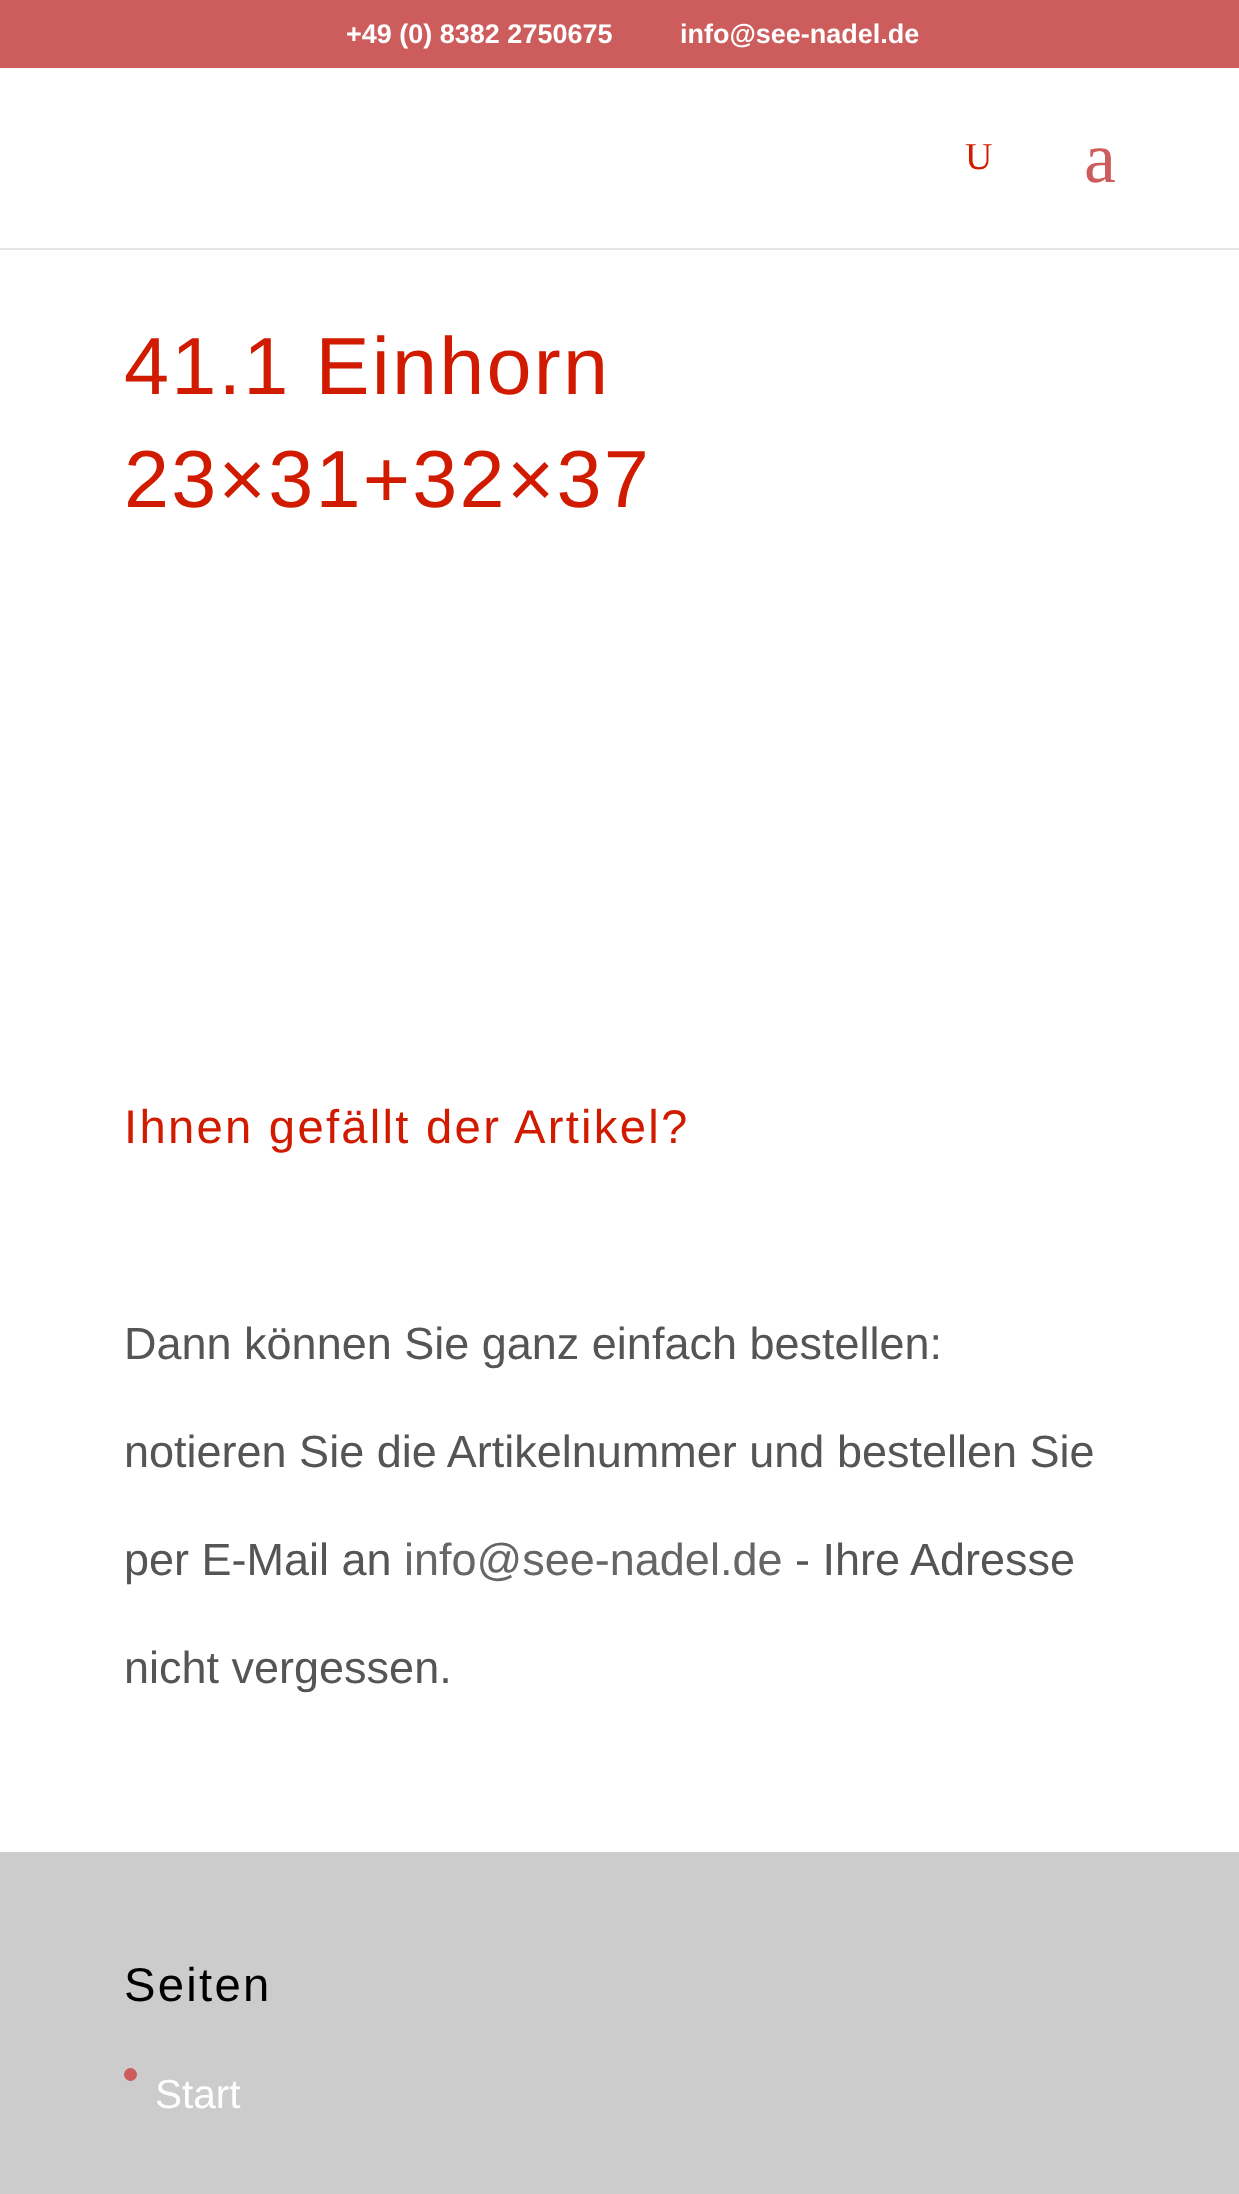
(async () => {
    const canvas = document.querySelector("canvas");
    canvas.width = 1239;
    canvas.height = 2194;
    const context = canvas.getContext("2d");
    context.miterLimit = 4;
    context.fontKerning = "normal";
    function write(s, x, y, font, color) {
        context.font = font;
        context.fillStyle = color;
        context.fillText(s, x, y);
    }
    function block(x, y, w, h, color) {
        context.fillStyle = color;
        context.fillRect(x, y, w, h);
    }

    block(0, 0, 1239, 2194, "rgb(255, 255, 255)");
    block(0, 0, 1239, 68, "rgb(205, 92, 92)");
    write("+49 (0) 8382 2750675", 346, 43, "bold 27px Liberation Sans", "rgb(255, 255, 255)");
    write("info@see-nadel.de", 680, 43, "bold 27px Liberation Sans", "rgb(255, 255, 255)");
    context.fillStyle = "rgb(230, 230, 230)";
    context.beginPath();
    context.moveTo(0, 248);
    context.lineTo(0, 250);
    context.lineTo(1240, 250);
    context.lineTo(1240, 70);
    context.lineTo(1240, 248);
    context.closePath();
    context.fill();
    write("U", 965, 169, "38px Liberation Serif", "rgb(209, 27, 0)");
    write("a", 1084, 182, "72px Liberation Serif", "rgb(205, 92, 92)");
    context.letterSpacing = "2.25px";
    write("41.1 Einhorn", 124, 394, "81px Liberation Sans", "rgb(209, 27, 0)");
    write("23×31+32×37", 124, 507, "81px Liberation Sans", "rgb(209, 27, 0)");
    write("Ihnen gefällt der Artikel?", 124, 1143, "47.25px Liberation Sans", "rgb(209, 27, 0)");
    context.letterSpacing = "0px";
    write("Dann können Sie ganz einfach bestellen:", 124, 1359, "45px Liberation Sans", "rgb(85, 85, 85)");
    write("notieren Sie die Artikelnummer und bestellen Sie", 124, 1467, "45px Liberation Sans", "rgb(85, 85, 85)");
    write("per E-Mail an", 124, 1575, "45px Liberation Sans", "rgb(85, 85, 85)");
    write("info@see-nadel.de", 404, 1575, "45px Liberation Sans", "rgb(102, 102, 102)");
    write("- Ihre Adresse", 795, 1575, "45px Liberation Sans", "rgb(85, 85, 85)");
    write("nicht vergessen.", 124, 1683, "45px Liberation Sans", "rgb(85, 85, 85)");
    block(0, 1852, 1239, 342, "rgb(204, 204, 204)");
    context.letterSpacing = "2.25px";
    write("Seiten", 124, 2001, "47.25px Liberation Sans", "rgb(0, 0, 0)");
    context.fillStyle = "rgb(205, 92, 92)";
    context.beginPath();
    context.arc(130.5, 2074.5, 6.5, 0, Math.PI * 2);
    context.fill();
    context.letterSpacing = "0px";
    write("Start", 155, 2108, "40.5px Liberation Sans", "rgb(255, 255, 255)");
})();
